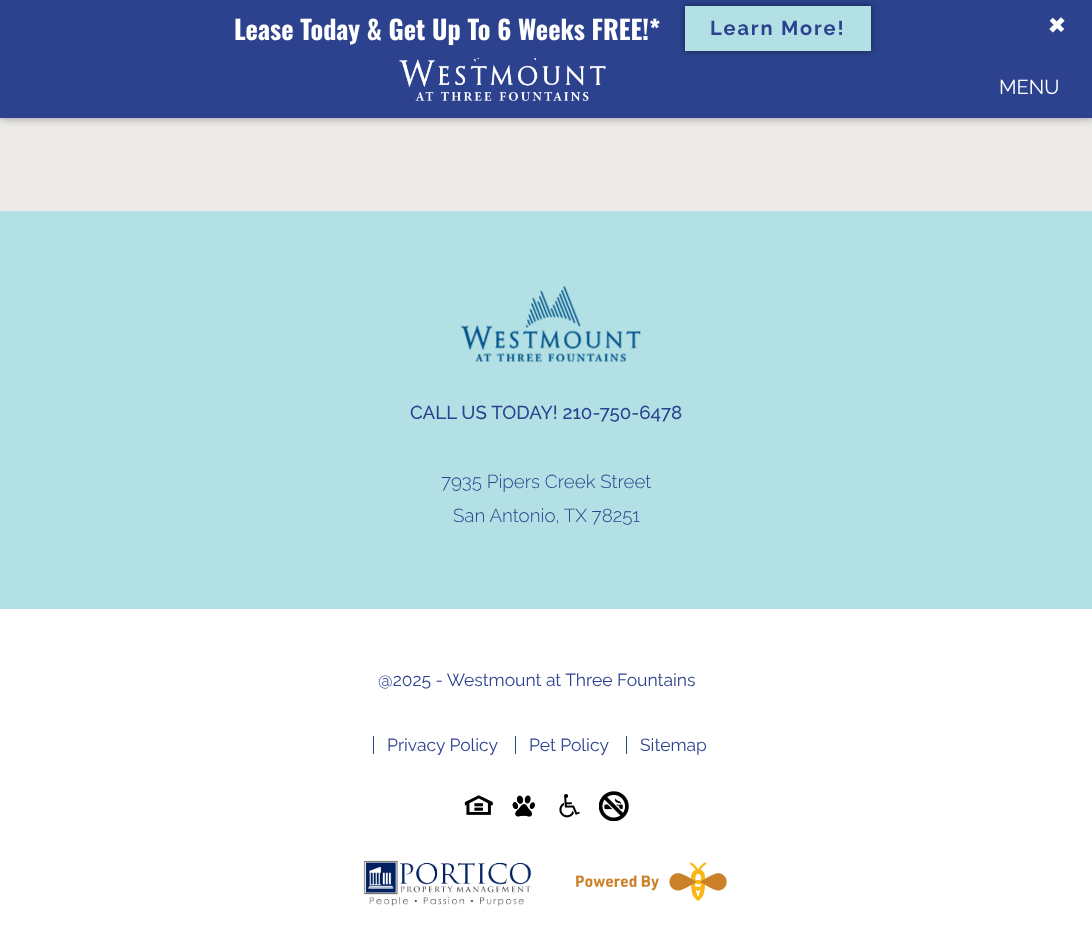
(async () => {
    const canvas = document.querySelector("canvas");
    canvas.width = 1092;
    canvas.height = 926;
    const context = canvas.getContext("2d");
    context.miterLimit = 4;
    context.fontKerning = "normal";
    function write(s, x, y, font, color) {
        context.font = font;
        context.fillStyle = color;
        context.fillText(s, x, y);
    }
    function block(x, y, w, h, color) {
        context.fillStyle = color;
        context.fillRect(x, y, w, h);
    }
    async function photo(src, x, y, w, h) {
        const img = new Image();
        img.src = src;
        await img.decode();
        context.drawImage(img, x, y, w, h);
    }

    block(0, 0, 1092, 926, "rgb(255, 255, 255)");
    block(0, 118, 1092, 93, "rgb(236, 235, 233)");
    context.fillStyle = "rgba(0, 0, 0, 0.4)";
    context.filter = "blur(4px)";
    context.beginPath();
    context.rect(0, 0, 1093, 118);
    context.fill();
    context.filter = "none";
    block(0, 0, 1092, 118, "rgb(44, 66, 142)");
    write("Lease Today & Get Up To 6 Weeks FREE!*", 234, 40, "bold 26.25px Oswald", "rgb(255, 255, 255)");
    context.fillStyle = "rgba(0, 0, 0, 0.5)";
    context.filter = "blur(3px)";
    context.beginPath();
    context.rect(685, 6, 186, 45);
    context.fill();
    context.filter = "none";
    block(685, 6, 186, 45, "rgb(178, 224, 228)");
    context.letterSpacing = "1.9px";
    write("Learn More!", 710, 35, "bold 20px Raleway", "rgb(44, 66, 142)");
    context.letterSpacing = "0px";
    context.font = "600 50px Raleway";
    context.fillStyle = "rgb(255, 255, 255)";
    context.save();
    context.translate(1037, 30);
    context.rotate(45 * Math.PI / 180);
    context.fillText("+", 0, 0);
    context.restore();
    await photo("media/1.png", 399, 58, 207, 43);
    write("MENU", 999, 94, "20px Raleway", "rgb(255, 255, 255)");
    block(0, 211, 1092, 398, "rgb(178, 224, 228)");
    await photo("media/2.png", 461, 286, 180, 76);
    write("CALL US TODAY! 210-750-6478", 410, 419, "500 18.75px Raleway", "rgb(44, 66, 142)");
    write("7935 Pipers Creek Street", 441, 488, "300 18.75px Raleway", "rgb(44, 66, 142)");
    write("San Antonio, TX 78251", 453, 522, "300 18.75px Raleway", "rgb(44, 66, 142)");
    write("@2025 - Westmount at Three Fountains", 378, 686, "17.5px Raleway", "rgb(44, 66, 142)");
    block(373, 736, 1, 18, "rgb(44, 66, 142)");
    write("Privacy Policy", 387, 751, "17.5px Raleway", "rgb(44, 66, 142)");
    block(515, 736, 1, 18, "rgb(44, 66, 142)");
    write("Pet Policy", 529, 751, "17.5px Raleway", "rgb(44, 66, 142)");
    block(626, 736, 1, 18, "rgb(44, 66, 142)");
    write("Sitemap", 640, 751, "17.5px Raleway", "rgb(44, 66, 142)");
    await photo("media/3.png", 464, 795, 29, 20);
    await photo("media/4.png", 512, 795, 23, 22);
    await photo("media/5.png", 559, 794, 21, 24);
    await photo("media/6.png", 599, 791, 30, 30);
    await photo("media/7.png", 363, 860, 169, 46);
    await photo("media/8.png", 576, 862, 151, 40);
})();
